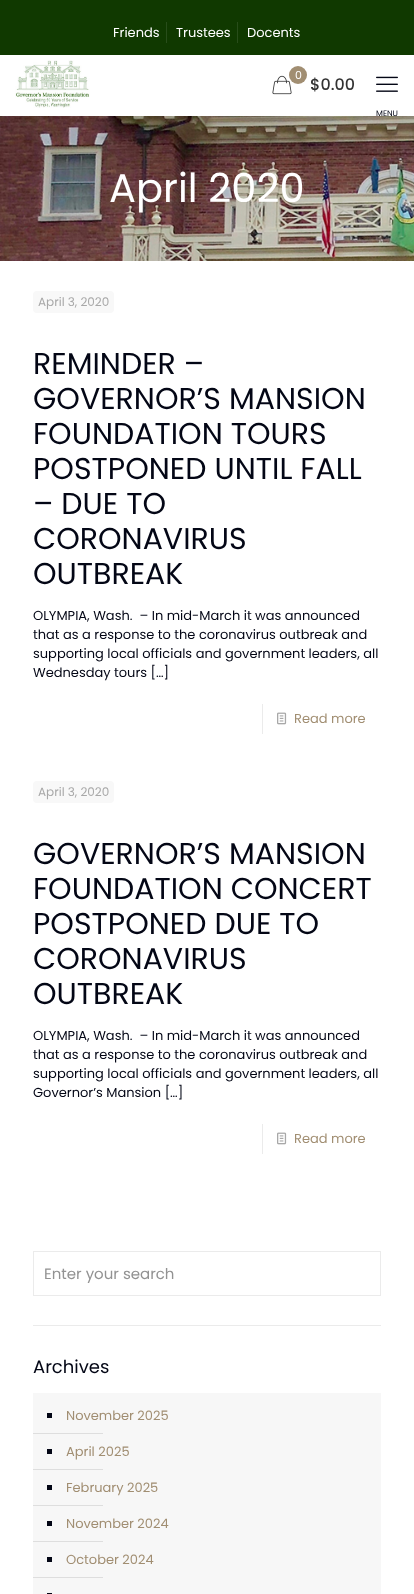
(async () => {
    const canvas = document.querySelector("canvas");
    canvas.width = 414;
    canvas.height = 1594;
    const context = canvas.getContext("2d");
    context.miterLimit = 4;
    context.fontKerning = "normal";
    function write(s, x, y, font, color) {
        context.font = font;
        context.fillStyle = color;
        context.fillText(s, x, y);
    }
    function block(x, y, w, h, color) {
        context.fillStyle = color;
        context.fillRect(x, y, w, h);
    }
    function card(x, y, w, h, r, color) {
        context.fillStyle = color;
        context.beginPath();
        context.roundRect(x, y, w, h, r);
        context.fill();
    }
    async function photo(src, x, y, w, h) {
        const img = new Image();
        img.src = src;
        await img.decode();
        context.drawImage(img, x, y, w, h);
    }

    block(0, 0, 414, 1594, "rgb(255, 255, 255)");
    block(0, 0, 414, 55, "rgb(16, 57, 0)");
    block(166, 22, 1, 21, "rgb(40, 77, 26)");
    write("Friends", 113, 37, "13px Poppins", "rgb(255, 255, 255)");
    block(237, 22, 1, 21, "rgb(40, 77, 26)");
    write("Trustees", 176, 37, "13px Poppins", "rgb(255, 255, 255)");
    write("Docents", 247, 37, "13px Poppins", "rgb(255, 255, 255)");
    await photo("media/1.png", 272, 75, 20, 20);
    context.fillStyle = "rgb(161, 142, 114)";
    context.beginPath();
    context.arc(298, 75, 9, 0, Math.PI * 2);
    context.fill();
    write("0", 295, 79, "11px Poppins", "rgb(255, 255, 255)");
    write("$0.00", 310, 90, "500 16px Poppins", "rgb(51, 51, 51)");
    await photo("media/2.png", 15, 60, 75, 48);
    await photo("media/3.png", 376, 76, 22, 16);
    await photo("media/4.png", 0, 116, 414, 145);
    write("MENU", 376, 116, "8px Poppins", "rgb(3, 6, 21)");
    write("April 2020", 109, 202, "40px Poppins", "rgb(255, 255, 255)");
    card(33, 291, 81, 22, 4, "rgb(248, 248, 248)");
    write("April 3, 2020", 38, 306, "12px Poppins", "rgb(168, 168, 168)");
    write("REMINDER –", 33, 374, "30px Poppins", "rgb(3, 6, 21)");
    write("GOVERNOR’S MANSION", 33, 409, "30px Poppins", "rgb(3, 6, 21)");
    write("FOUNDATION TOURS", 33, 444, "30px Poppins", "rgb(3, 6, 21)");
    write("POSTPONED UNTIL FALL", 33, 479, "30px Poppins", "rgb(3, 6, 21)");
    write("– DUE TO", 33, 514, "30px Poppins", "rgb(3, 6, 21)");
    write("CORONAVIRUS", 33, 549, "30px Poppins", "rgb(3, 6, 21)");
    write("OUTBREAK", 33, 584, "30px Poppins", "rgb(3, 6, 21)");
    write("OLYMPIA, Wash.  – In mid-March it was announced", 33, 620, "13px Poppins", "rgb(3, 6, 21)");
    write("that as a response to the coronavirus outbreak and", 33, 639, "13px Poppins", "rgb(3, 6, 21)");
    write("supporting local officials and government leaders, all", 33, 658, "13px Poppins", "rgb(3, 6, 21)");
    write("Wednesday tours […]", 33, 677, "13px Poppins", "rgb(3, 6, 21)");
    block(262, 704, 1, 30, "rgb(235, 235, 235)");
    await photo("media/5.png", 277, 712, 10, 13);
    write("Read more", 294, 723, "13px Poppins", "rgb(161, 142, 114)");
    card(33, 781, 81, 22, 4, "rgb(248, 248, 248)");
    write("April 3, 2020", 38, 796, "12px Poppins", "rgb(168, 168, 168)");
    write("GOVERNOR’S MANSION", 33, 864, "30px Poppins", "rgb(3, 6, 21)");
    write("FOUNDATION CONCERT", 33, 899, "30px Poppins", "rgb(3, 6, 21)");
    write("POSTPONED DUE TO", 33, 934, "30px Poppins", "rgb(3, 6, 21)");
    write("CORONAVIRUS", 33, 969, "30px Poppins", "rgb(3, 6, 21)");
    write("OUTBREAK", 33, 1004, "30px Poppins", "rgb(3, 6, 21)");
    write("OLYMPIA, Wash.  – In mid-March it was announced", 33, 1040, "13px Poppins", "rgb(3, 6, 21)");
    write("that as a response to the coronavirus outbreak and", 33, 1059, "13px Poppins", "rgb(3, 6, 21)");
    write("supporting local officials and government leaders, all", 33, 1078, "13px Poppins", "rgb(3, 6, 21)");
    write("Governor’s Mansion […]", 33, 1097, "13px Poppins", "rgb(3, 6, 21)");
    block(262, 1124, 1, 30, "rgb(235, 235, 235)");
    await photo("media/5.png", 277, 1132, 10, 13);
    write("Read more", 294, 1143, "13px Poppins", "rgb(161, 142, 114)");
    context.strokeStyle = "rgb(235, 235, 235)";
    context.strokeRect(33.5, 1251.5, 347, 44);
    write("Enter your search", 44, 1279, "15px Poppins", "rgb(146, 146, 146)");
    block(33, 1325, 348, 1, "rgb(235, 235, 235)");
    write("Archives", 33, 1373, "18px Poppins", "rgb(3, 6, 21)");
    block(33, 1393, 348, 201, "rgb(247, 247, 247)");
    block(47, 1413, 5, 5, "rgb(3, 6, 21)");
    write("November 2025", 66, 1420, "13px Poppins", "rgb(161, 142, 114)");
    block(33, 1433, 70, 1, "rgb(222, 222, 222)");
    block(47, 1449, 5, 5, "rgb(3, 6, 21)");
    write("April 2025", 66, 1456, "13px Poppins", "rgb(161, 142, 114)");
    block(33, 1469, 70, 1, "rgb(222, 222, 222)");
    block(47, 1485, 5, 5, "rgb(3, 6, 21)");
    write("February 2025", 66, 1492, "13px Poppins", "rgb(161, 142, 114)");
    block(33, 1505, 70, 1, "rgb(222, 222, 222)");
    block(47, 1521, 5, 5, "rgb(3, 6, 21)");
    write("November 2024", 66, 1528, "13px Poppins", "rgb(161, 142, 114)");
    block(33, 1541, 70, 1, "rgb(222, 222, 222)");
    block(47, 1557, 5, 5, "rgb(3, 6, 21)");
    write("October 2024", 66, 1564, "13px Poppins", "rgb(161, 142, 114)");
    block(33, 1577, 70, 1, "rgb(222, 222, 222)");
    block(47, 1593, 5, 1, "rgb(3, 6, 21)");
})();
